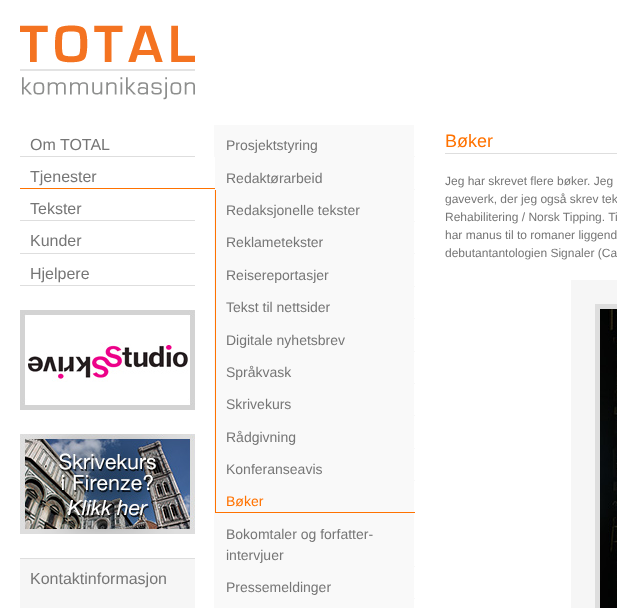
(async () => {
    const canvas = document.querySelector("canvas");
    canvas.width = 617;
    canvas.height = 608;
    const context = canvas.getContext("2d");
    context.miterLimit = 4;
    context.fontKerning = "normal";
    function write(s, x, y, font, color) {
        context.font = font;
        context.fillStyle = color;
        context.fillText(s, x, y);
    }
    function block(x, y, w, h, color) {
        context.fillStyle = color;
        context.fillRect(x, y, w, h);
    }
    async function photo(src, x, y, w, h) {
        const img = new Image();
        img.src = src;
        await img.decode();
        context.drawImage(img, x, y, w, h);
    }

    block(0, 0, 617, 608, "rgb(255, 255, 255)");
    await photo("media/1.png", 0, 125, 617, 483);
    await photo("media/2.png", 20, 25, 175, 75);
    block(20, 156, 175, 1, "rgb(222, 222, 222)");
    write("Om TOTAL", 30, 150, "16px Liberation Sans", "rgb(118, 118, 118)");
    block(214, 157, 1, 31, "rgb(255, 255, 255)");
    block(20, 188, 195, 1, "rgb(255, 114, 0)");
    write("Tjenester", 30, 182, "16px Liberation Sans", "rgb(118, 118, 118)");
    block(20, 220, 175, 1, "rgb(222, 222, 222)");
    write("Tekster", 30, 214, "16px Liberation Sans", "rgb(118, 118, 118)");
    block(20, 253, 175, 1, "rgb(222, 222, 222)");
    write("Kunder", 30, 246, "16px Liberation Sans", "rgb(118, 118, 118)");
    block(20, 285, 175, 1, "rgb(222, 222, 222)");
    write("Hjelpere", 30, 279, "16px Liberation Sans", "rgb(118, 118, 118)");
    await photo("media/3.png", 20, 310, 175, 100);
    await photo("media/4.png", 20, 434, 175, 100);
    block(20, 559, 175, 49, "rgb(246, 246, 246)");
    block(20, 558, 175, 1, "rgb(222, 222, 222)");
    write("Kontaktinformasjon", 30, 584, "16px Liberation Sans", "rgb(118, 118, 118)");
    block(414, 156, 1, 1, "rgb(247, 247, 247)");
    write("Prosjektstyring", 226, 150, "14px Liberation Sans", "rgb(118, 118, 118)");
    block(414, 189, 1, 1, "rgb(247, 247, 247)");
    write("Redaktørarbeid", 226, 183, "14px Liberation Sans", "rgb(118, 118, 118)");
    block(215, 190, 1, 323, "rgb(255, 114, 0)");
    block(414, 221, 1, 1, "rgb(247, 247, 247)");
    write("Redaksjonelle tekster", 226, 215, "14px Liberation Sans", "rgb(118, 118, 118)");
    block(414, 253, 1, 1, "rgb(247, 247, 247)");
    write("Reklametekster", 226, 247, "14px Liberation Sans", "rgb(118, 118, 118)");
    block(414, 286, 1, 1, "rgb(247, 247, 247)");
    write("Reisereportasjer", 226, 280, "14px Liberation Sans", "rgb(118, 118, 118)");
    block(414, 318, 1, 1, "rgb(247, 247, 247)");
    write("Tekst til nettsider", 226, 312, "14px Liberation Sans", "rgb(118, 118, 118)");
    block(414, 351, 1, 1, "rgb(247, 247, 247)");
    write("Digitale nyhetsbrev", 226, 345, "14px Liberation Sans", "rgb(118, 118, 118)");
    block(414, 383, 1, 1, "rgb(247, 247, 247)");
    write("Språkvask", 226, 377, "14px Liberation Sans", "rgb(118, 118, 118)");
    block(414, 415, 1, 1, "rgb(247, 247, 247)");
    write("Skrivekurs", 226, 409, "14px Liberation Sans", "rgb(118, 118, 118)");
    block(414, 448, 1, 1, "rgb(247, 247, 247)");
    write("Rådgivning", 226, 442, "14px Liberation Sans", "rgb(118, 118, 118)");
    block(414, 480, 1, 1, "rgb(247, 247, 247)");
    write("Konferanseavis", 226, 474, "14px Liberation Sans", "rgb(118, 118, 118)");
    block(216, 512, 199, 1, "rgb(255, 114, 0)");
    write("Bøker", 226, 506, "14px Liberation Sans", "rgb(255, 114, 0)");
    block(414, 566, 1, 1, "rgb(247, 247, 247)");
    write("Bokomtaler og forfatter-", 226, 539, "14px Liberation Sans", "rgb(118, 118, 118)");
    write("intervjuer", 226, 560, "14px Liberation Sans", "rgb(118, 118, 118)");
    block(414, 598, 1, 1, "rgb(247, 247, 247)");
    write("Pressemeldinger", 226, 592, "14px Liberation Sans", "rgb(118, 118, 118)");
    block(445, 153, 172, 1, "rgb(222, 222, 222)");
    write("Bøker", 445, 147, "18px Liberation Sans", "rgb(255, 114, 0)");
    write("Jeg har skrevet flere bøker. Jeg", 445, 185, "12px Liberation Sans", "rgb(118, 118, 118)");
    write("gaveverk, der jeg også skrev tek", 445, 203, "12px Liberation Sans", "rgb(118, 118, 118)");
    write("Rehabilitering / Norsk Tipping. Ti", 445, 221, "12px Liberation Sans", "rgb(118, 118, 118)");
    write("har manus til to romaner liggend", 445, 239, "12px Liberation Sans", "rgb(118, 118, 118)");
    write("debutantantologien Signaler (Ca", 445, 257, "12px Liberation Sans", "rgb(118, 118, 118)");
    block(571, 280, 46, 328, "rgb(246, 246, 246)");
    context.strokeStyle = "rgb(222, 222, 222)";
    context.lineWidth = 5;
    context.strokeRect(597.5, 306.5, 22, 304);
    await photo("media/5.png", 600, 309, 17, 299);
})();
